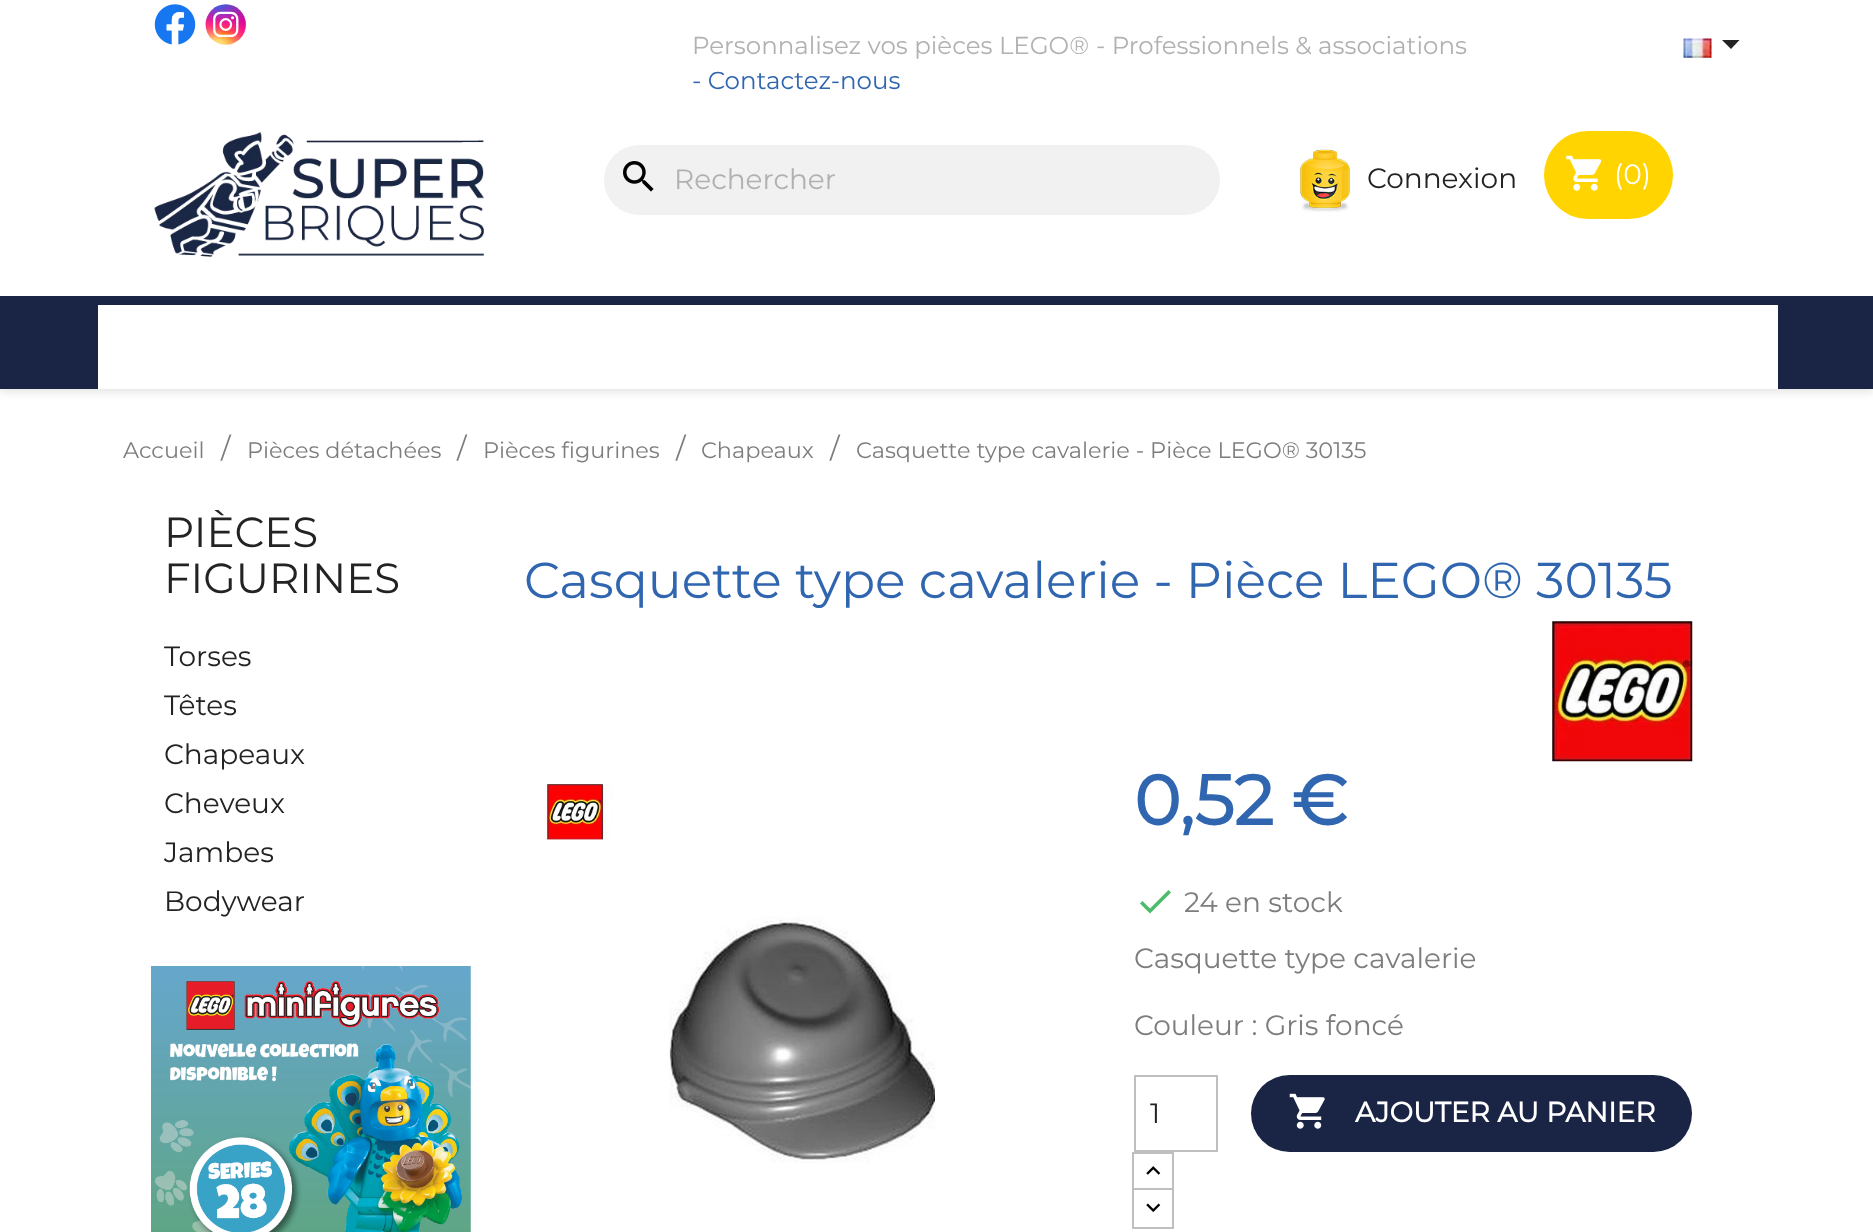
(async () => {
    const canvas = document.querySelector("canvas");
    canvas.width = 1873;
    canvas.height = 1232;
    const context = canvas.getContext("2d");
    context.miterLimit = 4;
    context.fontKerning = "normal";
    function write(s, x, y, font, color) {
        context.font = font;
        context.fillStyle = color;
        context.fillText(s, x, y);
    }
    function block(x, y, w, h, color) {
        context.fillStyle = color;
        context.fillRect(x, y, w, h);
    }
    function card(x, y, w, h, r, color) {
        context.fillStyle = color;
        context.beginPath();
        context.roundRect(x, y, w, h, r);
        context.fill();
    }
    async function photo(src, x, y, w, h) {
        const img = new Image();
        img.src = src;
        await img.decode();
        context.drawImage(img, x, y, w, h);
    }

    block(0, 0, 1873, 1232, "rgb(255, 255, 255)");
    context.fillStyle = "rgba(0, 0, 0, 0.11)";
    context.filter = "blur(4.5px)";
    context.beginPath();
    context.rect(0, 4, 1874, 388);
    context.fill();
    context.filter = "none";
    block(0, 0, 1873, 296, "rgb(255, 255, 255)");
    await photo("media/1.png", 154, 4, 42, 41);
    await photo("media/2.png", 205, 4, 41, 41);
    write("Personnalisez vos pièces LEGO®", 692, 54, "24.5px Montserrat", "rgb(177, 177, 177)");
    write("- Professionnels & associations", 1096, 54, "24.5px Montserrat", "rgb(177, 177, 177)");
    write("- Contactez-nous", 692, 89, "24.5px Montserrat", "rgb(48, 101, 175)");
    await photo("media/3.png", 1683, 38, 29, 20);
    context.fillStyle = "rgb(35, 35, 35)";
    context.beginPath();
    context.moveTo(1722, 40);
    context.lineTo(1739.5, 40);
    context.lineTo(1731, 49);
    context.closePath();
    context.fill();
    await photo("media/4.png", 154, 132, 330, 125);
    card(604, 145, 616, 70, 35, "rgb(241, 241, 241)");
    await photo("media/5.png", 623, 161, 31, 31);
    write("Rechercher", 674, 189, "28px Montserrat", "rgb(177, 177, 177)");
    await photo("media/6.png", 1300, 149, 50, 63);
    write("Connexion", 1367, 188, "28px Montserrat", "rgb(35, 35, 35)");
    card(1544, 131, 129, 88, 44, "rgb(255, 212, 0)");
    await photo("media/7.png", 1566, 155, 36, 36);
    write("(0)", 1614, 184, "28px Montserrat", "rgb(255, 255, 255)");
    block(0, 296, 1873, 93, "rgb(26, 36, 69)");
    block(98, 305, 1680, 84, "rgb(255, 255, 255)");
    write("Accueil", 123, 458, "22.4px Montserrat", "rgb(125, 125, 125)");
    write("/", 221, 458, "28px Montserrat", "rgb(125, 125, 125)");
    write("Pièces détachées", 247, 458, "22.4px Montserrat", "rgb(125, 125, 125)");
    write("/", 457, 458, "28px Montserrat", "rgb(125, 125, 125)");
    write("Pièces figurines", 483, 458, "22.4px Montserrat", "rgb(125, 125, 125)");
    write("/", 676, 458, "28px Montserrat", "rgb(125, 125, 125)");
    write("Chapeaux", 701, 458, "22.4px Montserrat", "rgb(125, 125, 125)");
    write("/", 830, 458, "28px Montserrat", "rgb(125, 125, 125)");
    write("Casquette type cavalerie - Pièce LEGO® 30135", 856, 458, "22.4px Montserrat", "rgb(125, 125, 125)");
    write("PIÈCES", 164, 547, "42px Montserrat", "rgb(35, 35, 35)");
    write("FIGURINES", 164, 593, "42px Montserrat", "rgb(35, 35, 35)");
    write("Torses", 164, 666, "28px Montserrat", "rgb(35, 35, 35)");
    write("Têtes", 164, 715, "28px Montserrat", "rgb(35, 35, 35)");
    write("Chapeaux", 164, 764, "28px Montserrat", "rgb(35, 35, 35)");
    write("Cheveux", 164, 813, "28px Montserrat", "rgb(35, 35, 35)");
    write("Jambes", 164, 862, "28px Montserrat", "rgb(35, 35, 35)");
    write("Bodywear", 164, 911, "28px Montserrat", "rgb(35, 35, 35)");
    await photo("media/8.png", 151, 966, 320, 266);
    write("Casquette type cavalerie - Pièce LEGO® 30135", 524, 598, "50.4px Montserrat", "rgb(48, 101, 175)");
    await photo("media/9.png", 1552, 621, 141, 141);
    await photo("media/10.png", 545, 783, 391, 380);
    write("0,52 €", 1134, 825, "bold 70px Montserrat", "rgb(48, 101, 175)");
    context.fillStyle = "rgb(76, 187, 108)";
    context.beginPath();
    context.moveTo(1150, 908.5);
    context.lineTo(1168.5, 890);
    context.lineTo(1171, 892.5);
    context.lineTo(1150, 913.5);
    context.lineTo(1140, 903.5);
    context.lineTo(1142.5, 901);
    context.closePath();
    context.fill();
    write("24 en stock", 1184, 912, "28px Montserrat", "rgb(125, 125, 125)");
    write("Casquette type cavalerie", 1134, 968, "28px Montserrat", "rgb(125, 125, 125)");
    write("Couleur : Gris foncé", 1134, 1035, "28px Montserrat", "rgb(125, 125, 125)");
    context.strokeStyle = "rgb(191, 191, 191)";
    context.lineWidth = 2;
    context.strokeRect(1135, 1076, 82, 75);
    write("1", 1150, 1123, "28px Montserrat", "rgb(35, 35, 35)");
    context.strokeRect(1133, 1153, 40, 38);
    await photo("media/11.png", 1146, 1166, 15, 9);
    block(1134, 1190, 38, 2, "rgb(255, 255, 255)");
    context.strokeRect(1133, 1189, 40, 39);
    await photo("media/12.png", 1146, 1203, 15, 9);
    card(1251, 1075, 441, 77, 38.5, "rgb(26, 36, 69)");
    await photo("media/13.png", 1289, 1093, 36, 36);
    write("AJOUTER AU PANIER", 1355, 1122, "bold 28px Montserrat", "rgb(255, 255, 255)");
})();
